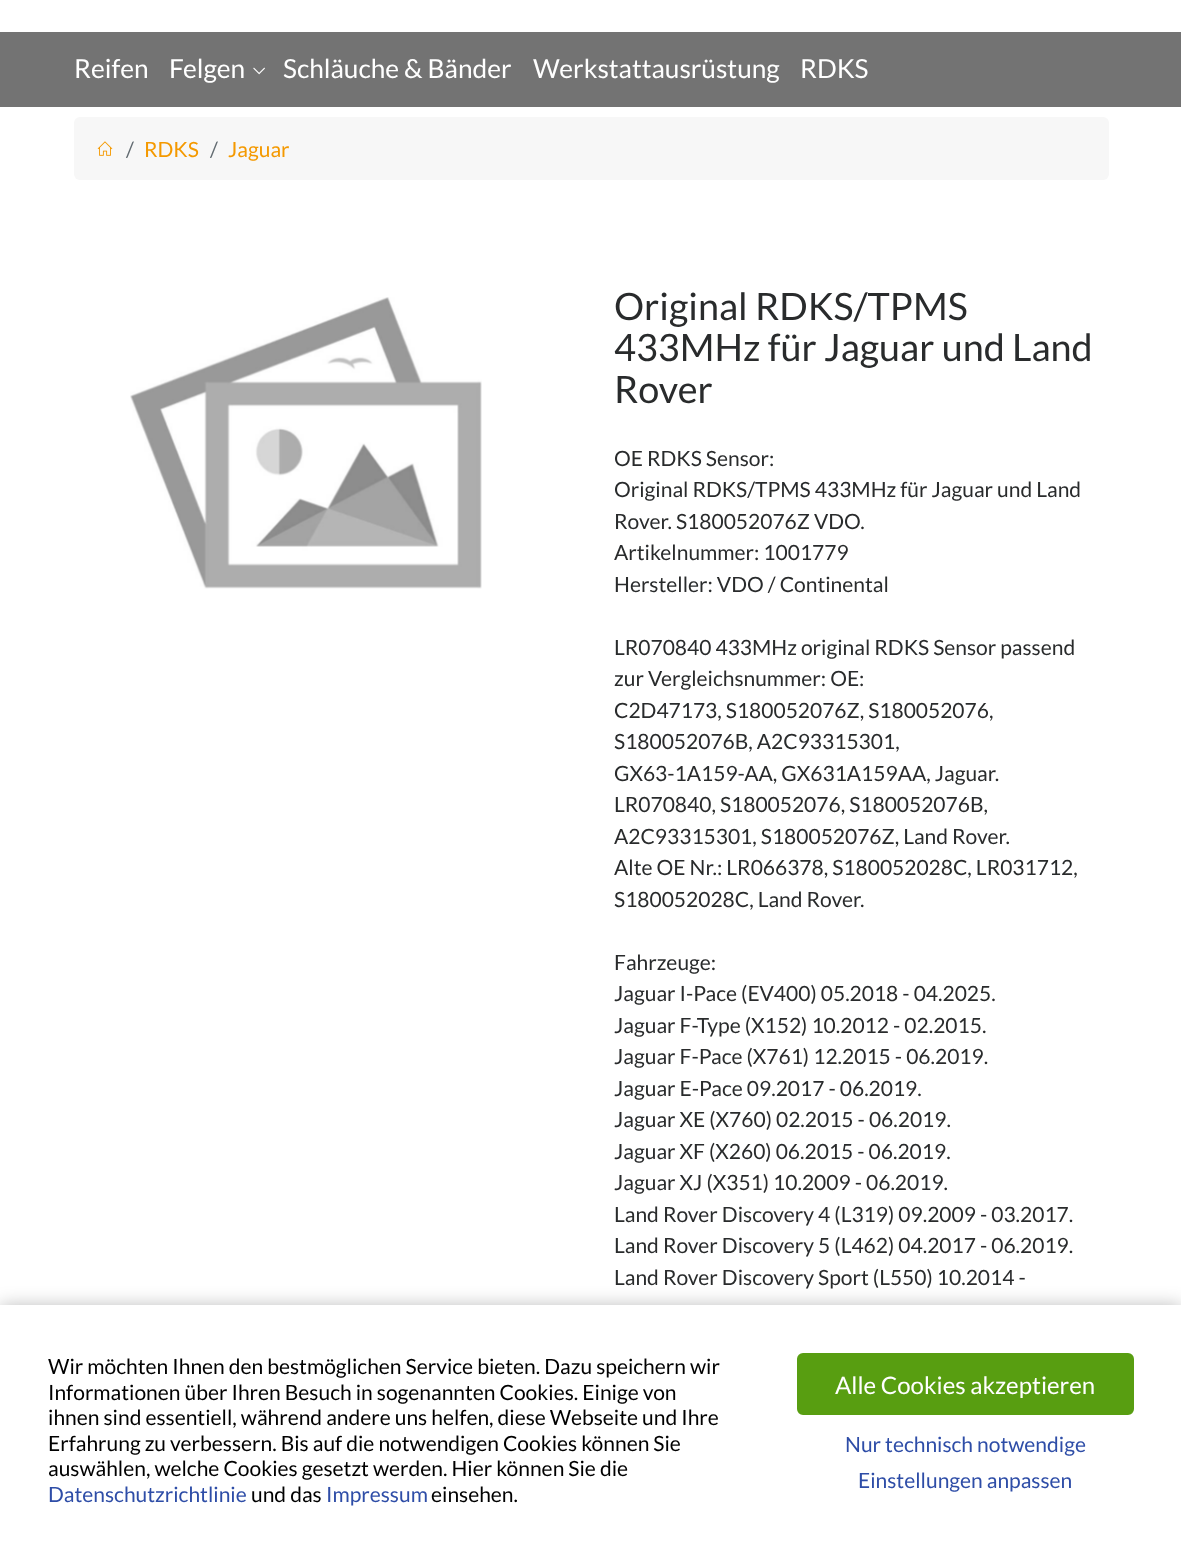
(async () => {
    const canvas = document.querySelector("canvas");
    canvas.width = 1181;
    canvas.height = 1553;
    const context = canvas.getContext("2d");
    context.miterLimit = 4;
    context.fontKerning = "normal";
    function write(s, x, y, font, color) {
        context.font = font;
        context.fillStyle = color;
        context.fillText(s, x, y);
    }
    function block(x, y, w, h, color) {
        context.fillStyle = color;
        context.fillRect(x, y, w, h);
    }
    function card(x, y, w, h, r, color) {
        context.fillStyle = color;
        context.beginPath();
        context.roundRect(x, y, w, h, r);
        context.fill();
    }
    async function photo(src, x, y, w, h) {
        const img = new Image();
        img.src = src;
        await img.decode();
        context.drawImage(img, x, y, w, h);
    }

    block(0, 0, 1181, 1553, "rgb(255, 255, 255)");
    block(0, 32, 1181, 75, "rgb(115, 115, 115)");
    write("Reifen", 74, 78, "26.25px Lato", "rgb(255, 255, 255)");
    write("Felgen", 169, 78, "26.25px Lato", "rgb(255, 255, 255)");
    await photo("media/1.png", 253, 67, 12, 8);
    write("Schläuche & Bänder", 283, 78, "26.25px Lato", "rgb(255, 255, 255)");
    write("Werkstattausrüstung", 533, 78, "26.25px Lato", "rgb(255, 255, 255)");
    write("RDKS", 800, 78, "26.25px Lato", "rgb(255, 255, 255)");
    card(74, 117, 1035, 63, 6, "rgb(247, 247, 247)");
    await photo("media/2.png", 97, 141, 16, 15);
    write("/", 126, 157, "21px Lato", "rgb(99, 108, 114)");
    write("RDKS", 144, 157, "21px Lato", "rgb(244, 153, 0)");
    write("/", 210, 157, "21px Lato", "rgb(99, 108, 114)");
    write("Jaguar", 228, 157, "21px Lato", "rgb(244, 153, 0)");
    await photo("media/3.png", 130, 297, 352, 292);
    write("Original RDKS/TPMS", 614, 320, "37.75px Lato", "rgb(41, 43, 44)");
    write("433MHz für Jaguar und Land", 614, 361, "37.75px Lato", "rgb(41, 43, 44)");
    write("Rover", 614, 403, "37.75px Lato", "rgb(41, 43, 44)");
    write("OE RDKS Sensor:", 614, 466, "21px Lato", "rgb(41, 43, 44)");
    write("Original RDKS/TPMS 433MHz für Jaguar und Land", 614, 497, "21px Lato", "rgb(41, 43, 44)");
    write("Rover. S180052076Z VDO.", 614, 529, "21px Lato", "rgb(41, 43, 44)");
    write("Artikelnummer: 1001779", 614, 560, "21px Lato", "rgb(41, 43, 44)");
    write("Hersteller: VDO / Continental", 614, 592, "21px Lato", "rgb(41, 43, 44)");
    write("LR070840 433MHz original RDKS Sensor passend", 614, 655, "21px Lato", "rgb(41, 43, 44)");
    write("zur Vergleichsnummer: OE:", 614, 686, "21px Lato", "rgb(41, 43, 44)");
    write("C2D47173, S180052076Z, S180052076,", 614, 718, "21px Lato", "rgb(41, 43, 44)");
    write("S180052076B, A2C93315301,", 614, 749, "21px Lato", "rgb(41, 43, 44)");
    write("GX63-1A159-AA, GX631A159AA, Jaguar.", 614, 781, "21px Lato", "rgb(41, 43, 44)");
    write("LR070840, S180052076, S180052076B,", 614, 812, "21px Lato", "rgb(41, 43, 44)");
    write("A2C93315301, S180052076Z, Land Rover.", 614, 844, "21px Lato", "rgb(41, 43, 44)");
    write("Alte OE Nr.: LR066378, S180052028C, LR031712,", 614, 875, "21px Lato", "rgb(41, 43, 44)");
    write("S180052028C, Land Rover.", 614, 907, "21px Lato", "rgb(41, 43, 44)");
    write("Fahrzeuge:", 614, 970, "21px Lato", "rgb(41, 43, 44)");
    write("Jaguar I-Pace (EV400) 05.2018 - 04.2025.", 614, 1001, "21px Lato", "rgb(41, 43, 44)");
    write("Jaguar F-Type (X152) 10.2012 - 02.2015.", 614, 1033, "21px Lato", "rgb(41, 43, 44)");
    write("Jaguar F-Pace (X761) 12.2015 - 06.2019.", 614, 1064, "21px Lato", "rgb(41, 43, 44)");
    write("Jaguar E-Pace 09.2017 - 06.2019.", 614, 1096, "21px Lato", "rgb(41, 43, 44)");
    write("Jaguar XE (X760) 02.2015 - 06.2019.", 614, 1127, "21px Lato", "rgb(41, 43, 44)");
    write("Jaguar XF (X260) 06.2015 - 06.2019.", 614, 1159, "21px Lato", "rgb(41, 43, 44)");
    write("Jaguar XJ (X351) 10.2009 - 06.2019.", 614, 1190, "21px Lato", "rgb(41, 43, 44)");
    write("Land Rover Discovery 4 (L319) 09.2009 - 03.2017.", 614, 1222, "21px Lato", "rgb(41, 43, 44)");
    write("Land Rover Discovery 5 (L462) 04.2017 - 06.2019.", 614, 1253, "21px Lato", "rgb(41, 43, 44)");
    write("Land Rover Discovery Sport (L550) 10.2014 -", 614, 1285, "21px Lato", "rgb(41, 43, 44)");
    context.fillStyle = "rgba(0, 0, 0, 0.25)";
    context.filter = "blur(9px)";
    context.beginPath();
    context.rect(0, 1305, 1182, 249);
    context.fill();
    context.filter = "none";
    block(0, 1305, 1181, 248, "rgb(255, 255, 255)");
    write("Wir möchten Ihnen den bestmöglichen Service bieten. Dazu speichern wir", 48, 1374, "21px Lato", "rgb(0, 0, 0)");
    write("Informationen über Ihren Besuch in sogenannten Cookies. Einige von", 48, 1400, "21px Lato", "rgb(0, 0, 0)");
    write("ihnen sind essentiell, während andere uns helfen, diese Webseite und Ihre", 48, 1425, "21px Lato", "rgb(0, 0, 0)");
    write("Erfahrung zu verbessern. Bis auf die notwendigen Cookies können Sie", 48, 1451, "21px Lato", "rgb(0, 0, 0)");
    write("auswählen, welche Cookies gesetzt werden. Hier können Sie die", 48, 1476, "21px Lato", "rgb(0, 0, 0)");
    write("Datenschutzrichtlinie", 48, 1502, "21px Lato", "rgb(46, 77, 167)");
    write("und das", 251, 1502, "21px Lato", "rgb(0, 0, 0)");
    write("Impressum", 326, 1502, "21px Lato", "rgb(46, 77, 167)");
    write("einsehen.", 431, 1502, "21px Lato", "rgb(0, 0, 0)");
    context.fillStyle = "rgb(88, 158, 17)";
    context.beginPath();
    context.roundRect(798, 1354, 335, 60, 5);
    context.fill();
    context.strokeStyle = "rgb(88, 158, 17)";
    context.lineWidth = 2;
    context.stroke();
    write("Alle Cookies akzeptieren", 835, 1394, "24px Lato", "rgb(255, 255, 255)");
    write("Nur technisch notwendige", 845, 1452, "21px Lato", "rgb(46, 77, 167)");
    write("Einstellungen anpassen", 858, 1488, "21px Lato", "rgb(46, 77, 167)");
})();
